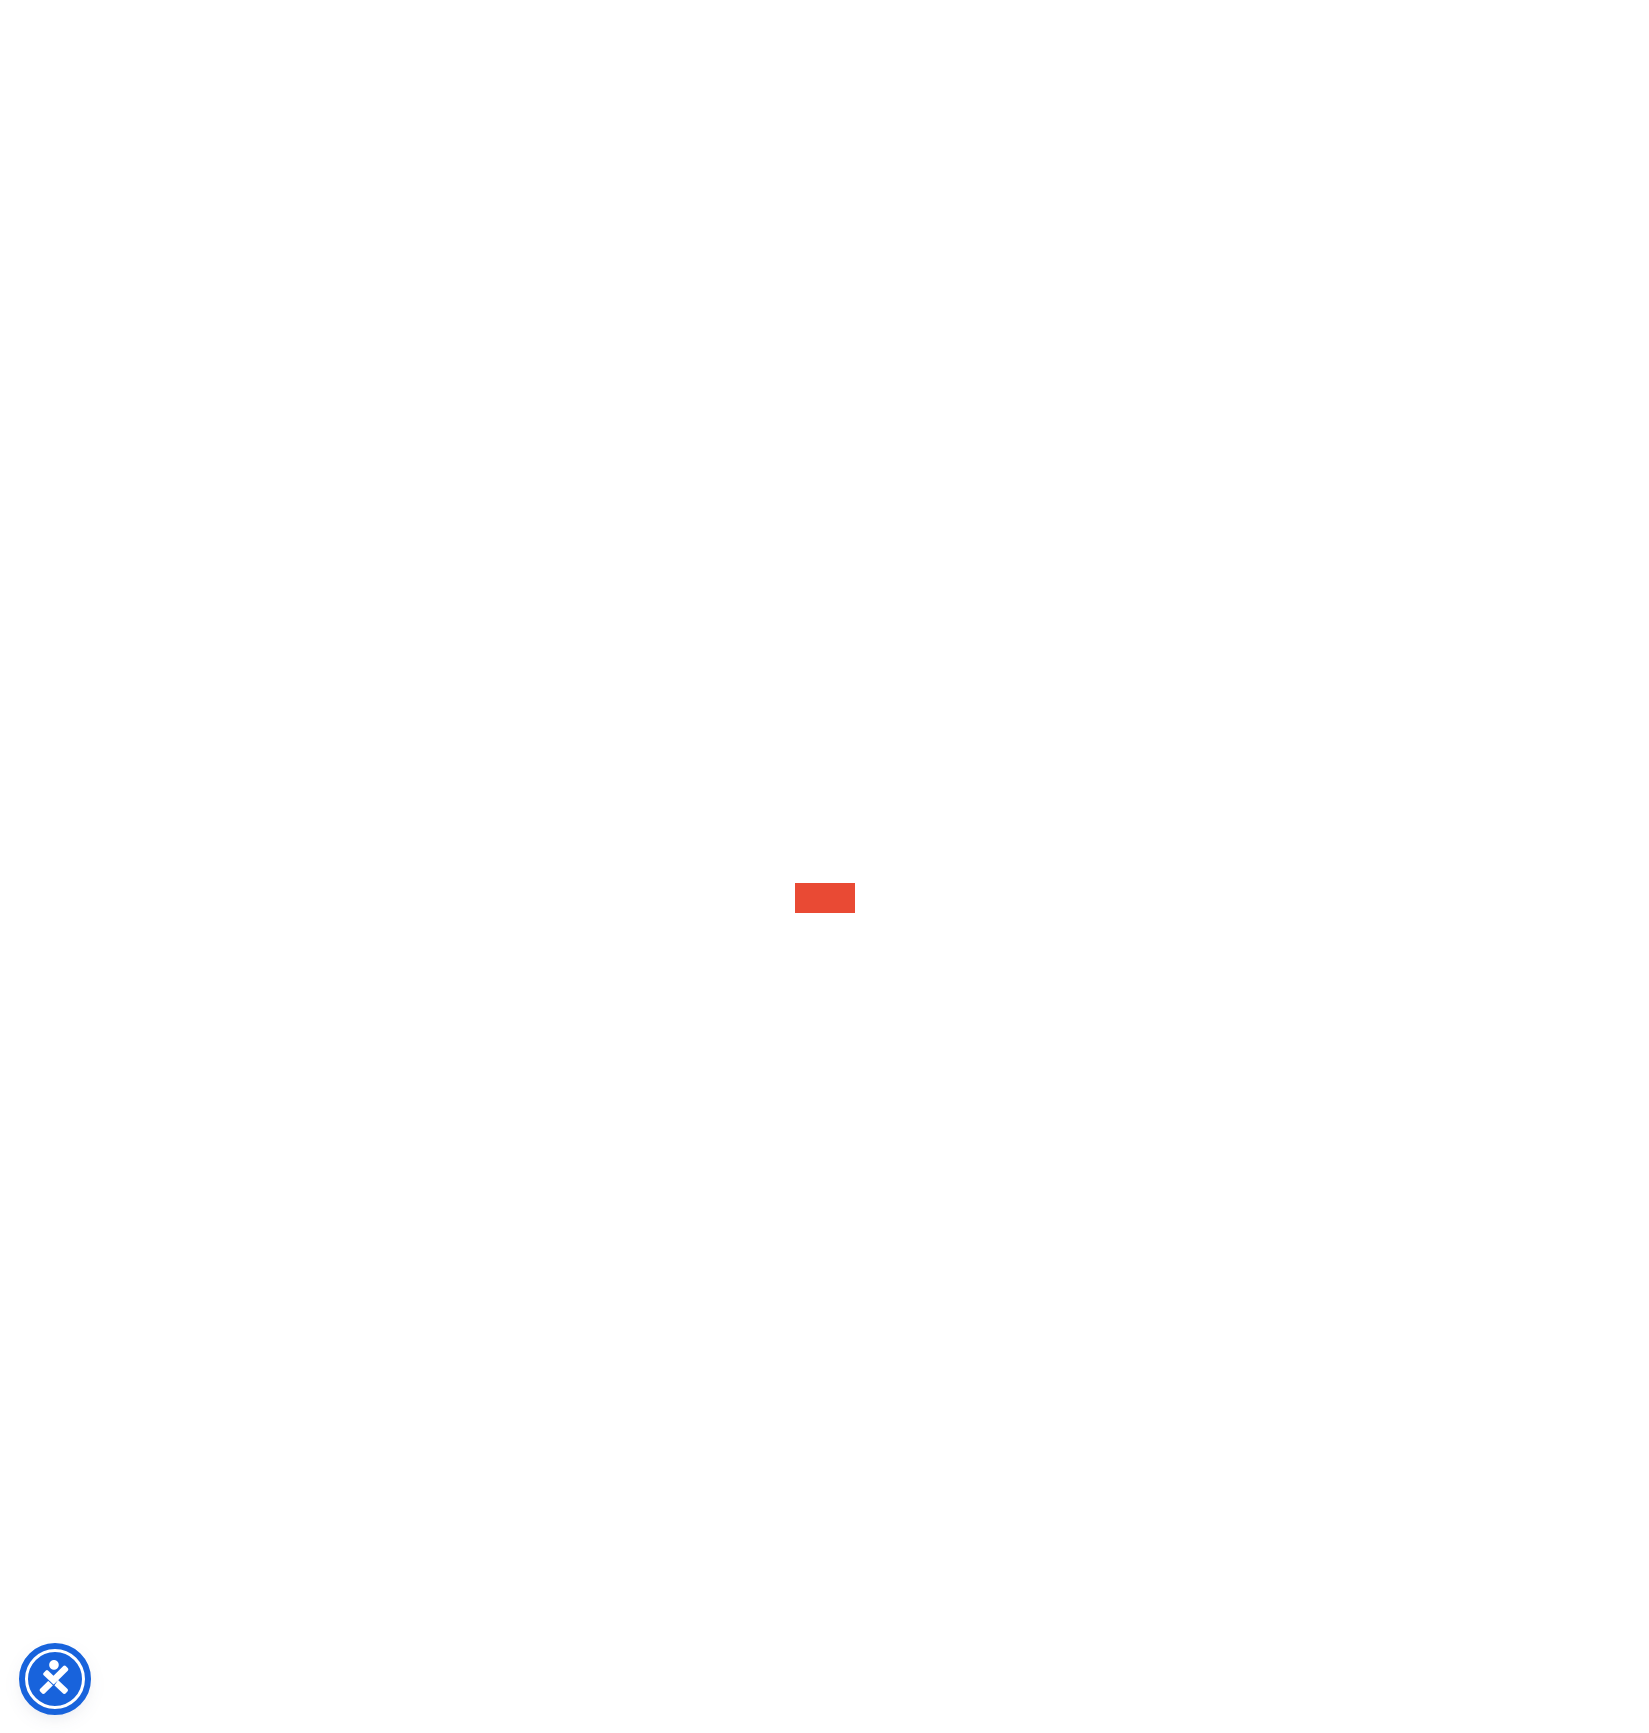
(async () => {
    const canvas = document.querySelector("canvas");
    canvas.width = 1649;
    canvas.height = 1733;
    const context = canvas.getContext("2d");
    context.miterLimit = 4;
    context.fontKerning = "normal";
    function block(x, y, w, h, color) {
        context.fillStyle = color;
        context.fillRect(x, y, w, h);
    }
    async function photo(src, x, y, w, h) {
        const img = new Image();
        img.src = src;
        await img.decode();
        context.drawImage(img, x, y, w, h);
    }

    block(0, 0, 1649, 1733, "rgb(255, 255, 255)");
    block(795, 883, 60, 30, "rgb(233, 74, 52)");
    context.fillStyle = "rgba(93, 100, 148, 0.2)";
    context.filter = "blur(2.5px)";
    context.beginPath();
    context.roundRect(25, 1651, 60, 60, 30);
    context.fill();
    context.filter = "none";
    context.fillStyle = "rgba(37, 44, 97, 0.15)";
    context.filter = "blur(9.5px)";
    context.beginPath();
    context.roundRect(25, 1655, 60, 60, 30);
    context.fill();
    context.filter = "none";
    context.fillStyle = "rgb(24, 99, 220)";
    context.beginPath();
    context.arc(55, 1679, 28.5, 0, Math.PI * 2);
    context.fill();
    context.strokeStyle = "rgb(255, 255, 255)";
    context.lineWidth = 3;
    context.stroke();
    context.beginPath();
    context.arc(55, 1679, 33, 0, Math.PI * 2);
    context.strokeStyle = "rgb(24, 99, 220)";
    context.lineWidth = 6;
    context.stroke();
    await photo("media/1.png", 39, 1660, 30, 34);
})();
